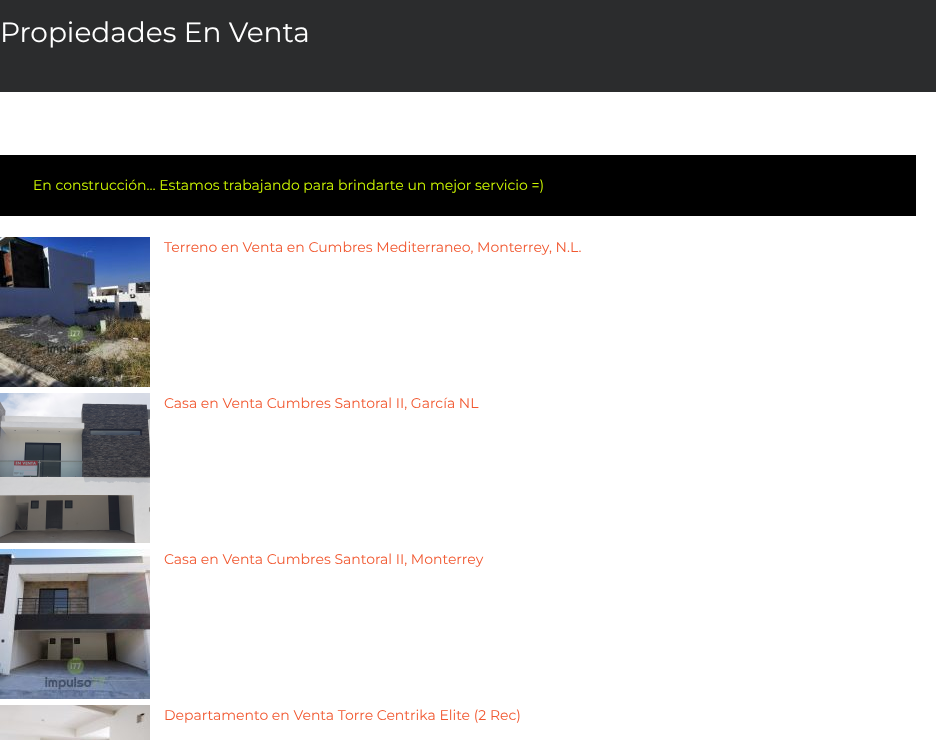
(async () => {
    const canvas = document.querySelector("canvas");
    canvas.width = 936;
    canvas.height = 740;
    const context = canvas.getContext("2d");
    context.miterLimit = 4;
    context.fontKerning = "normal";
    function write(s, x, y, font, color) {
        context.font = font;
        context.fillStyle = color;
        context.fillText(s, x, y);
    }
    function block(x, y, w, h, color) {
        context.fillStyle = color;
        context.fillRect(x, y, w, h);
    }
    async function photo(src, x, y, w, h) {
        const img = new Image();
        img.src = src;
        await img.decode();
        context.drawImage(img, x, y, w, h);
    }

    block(0, 0, 936, 740, "rgb(255, 255, 255)");
    block(0, 0, 936, 92, "rgb(43, 44, 45)");
    write("Propiedades En Venta", 0, 42, "100 28px Montserrat", "rgb(255, 255, 255)");
    block(0, 155, 916, 61, "rgb(0, 0, 0)");
    write("En construcción… Estamos trabajando para brindarte un mejor servicio =)", 33, 190, "100 14px Montserrat", "rgb(208, 250, 0)");
    await photo("media/1.png", 0, 237, 150, 150);
    write("Terreno en Venta en Cumbres Mediterraneo, Monterrey, N.L.", 164, 252, "100 14px Montserrat", "rgb(241, 87, 47)");
    await photo("media/2.png", 0, 393, 150, 150);
    write("Casa en Venta Cumbres Santoral II, García NL", 164, 408, "100 14px Montserrat", "rgb(241, 87, 47)");
    await photo("media/3.png", 0, 549, 150, 150);
    write("Casa en Venta Cumbres Santoral II, Monterrey", 164, 564, "100 14px Montserrat", "rgb(241, 87, 47)");
    await photo("media/4.png", 0, 705, 150, 35);
    write("Departamento en Venta Torre Centrika Elite (2 Rec)", 164, 720, "100 14px Montserrat", "rgb(241, 87, 47)");
})();
